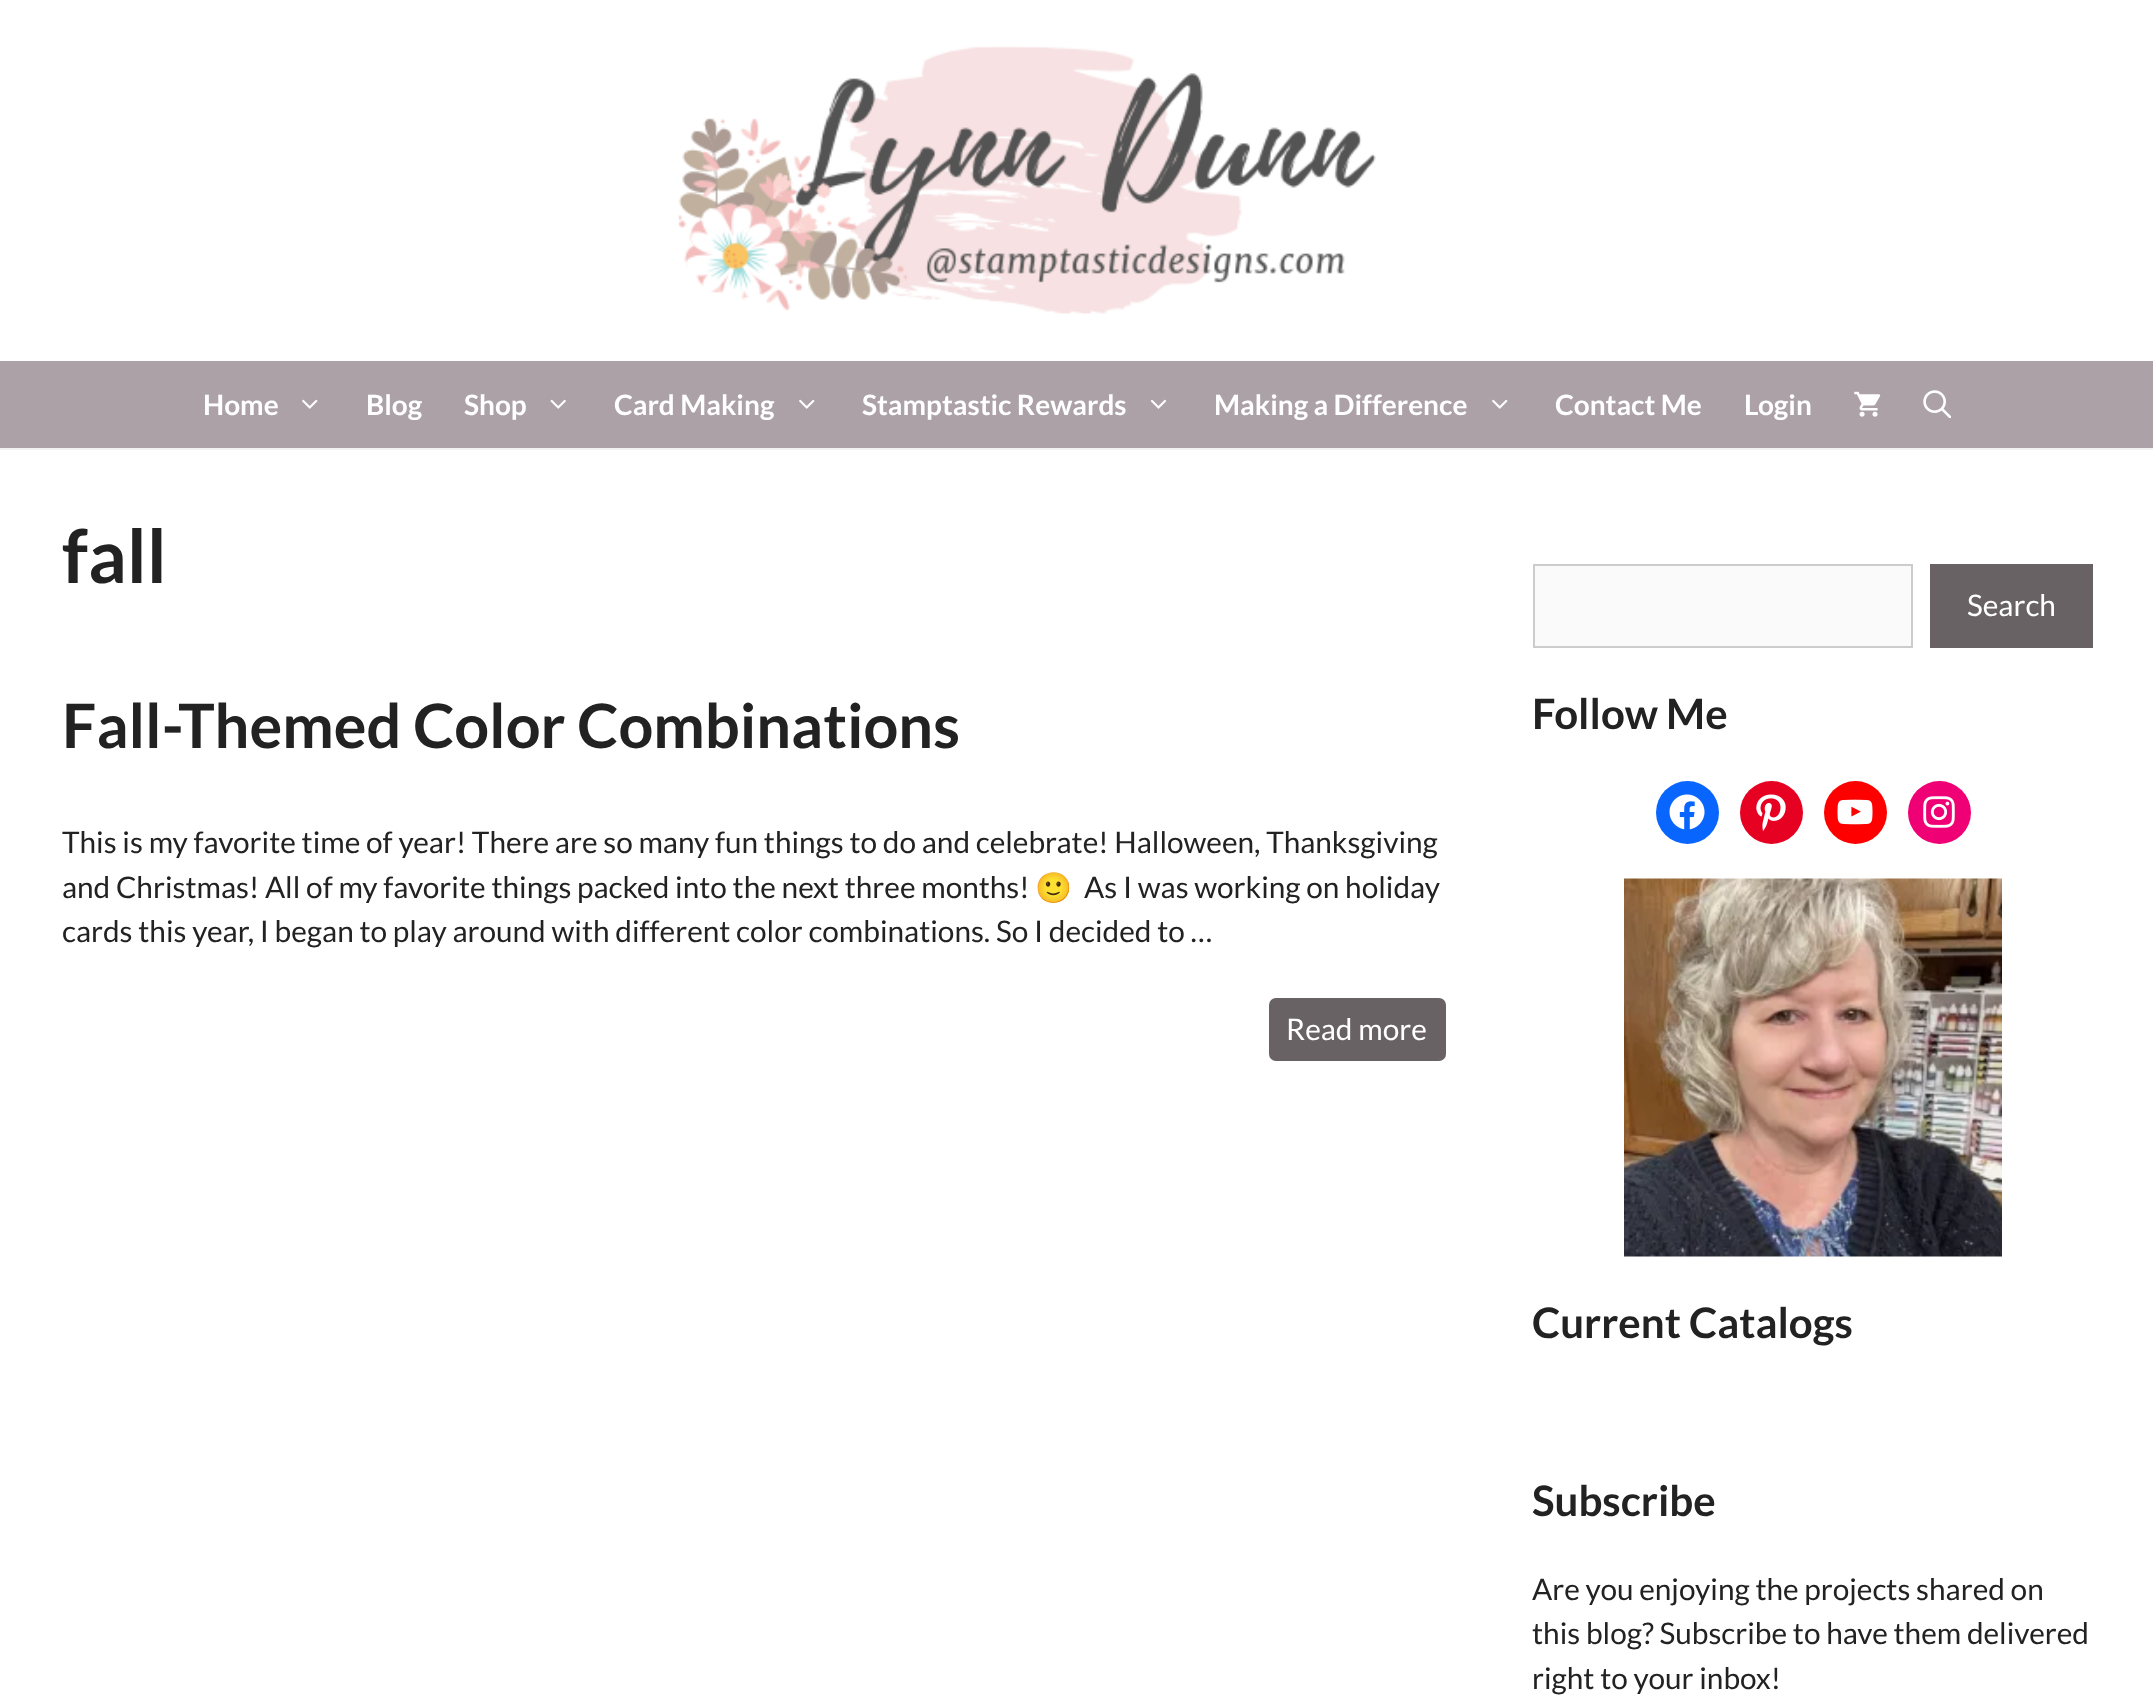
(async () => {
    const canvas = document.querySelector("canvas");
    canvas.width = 2153;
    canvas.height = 1703;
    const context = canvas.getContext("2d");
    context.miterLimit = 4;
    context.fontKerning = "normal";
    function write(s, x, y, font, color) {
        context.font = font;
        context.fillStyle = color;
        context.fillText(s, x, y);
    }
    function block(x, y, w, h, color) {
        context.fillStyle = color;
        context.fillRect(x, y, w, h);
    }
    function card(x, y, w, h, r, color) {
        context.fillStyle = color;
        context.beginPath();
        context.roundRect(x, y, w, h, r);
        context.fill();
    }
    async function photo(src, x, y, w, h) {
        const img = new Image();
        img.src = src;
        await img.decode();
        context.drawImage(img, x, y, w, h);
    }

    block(0, 0, 2153, 1703, "rgb(255, 255, 255)");
    await photo("media/1.png", 678, 46, 698, 268);
    block(0, 361, 2153, 87, "rgb(172, 161, 166)");
    block(0, 448, 2153, 2, "rgb(242, 242, 242)");
    write("Home", 203, 415, "bold 28px Lato", "rgb(255, 255, 255)");
    await photo("media/2.png", 302, 399, 16, 10);
    write("Blog", 366, 415, "bold 28px Lato", "rgb(255, 255, 255)");
    write("Shop", 464, 415, "bold 28px Lato", "rgb(255, 255, 255)");
    await photo("media/3.png", 550, 399, 16, 10);
    write("Card Making", 614, 415, "bold 28px Lato", "rgb(255, 255, 255)");
    await photo("media/2.png", 799, 399, 16, 10);
    write("Stamptastic Rewards", 862, 415, "bold 28px Lato", "rgb(255, 255, 255)");
    await photo("media/4.png", 1150, 399, 17, 10);
    write("Making a Difference", 1214, 415, "bold 28px Lato", "rgb(255, 255, 255)");
    await photo("media/2.png", 1492, 399, 16, 10);
    write("Contact Me", 1555, 415, "bold 28px Lato", "rgb(255, 255, 255)");
    write("Login", 1744, 415, "bold 28px Lato", "rgb(255, 255, 255)");
    await photo("media/5.png", 1854, 391, 27, 26);
    await photo("media/6.png", 1923, 390, 28, 28);
    write("fall", 62, 583, "bold 74px Lato", "rgb(34, 34, 34)");
    write("Fall-Themed Color Combinations", 62, 748, "bold 61.25px Lato", "rgb(34, 34, 34)");
    write("This is my favorite time of year! There are so many fun things to do and celebrate! Halloween, Thanksgiving", 62, 853, "29.75px Lato", "rgb(34, 34, 34)");
    write("and Christmas! All of my favorite things packed into the next three months!", 62, 898, "29.75px Lato", "rgb(34, 34, 34)");
    write("🙂", 1035, 898, "29.75px Noto Color Emoji", "rgb(34, 34, 34)");
    write("As I was working on holiday", 1084, 898, "29.75px Lato", "rgb(34, 34, 34)");
    write("cards this year, I began to play around with different color combinations. So I decided to …", 62, 942, "29.75px Lato", "rgb(34, 34, 34)");
    card(1269, 998, 177, 63, 7, "rgb(104, 98, 101)");
    write("Read more", 1286, 1040, "29.75px Lato", "rgb(255, 255, 255)");
    context.fillStyle = "rgb(250, 250, 250)";
    context.beginPath();
    context.rect(1534, 565, 378, 82);
    context.fill();
    context.strokeStyle = "rgb(204, 204, 204)";
    context.lineWidth = 2;
    context.stroke();
    block(1930, 564, 163, 84, "rgb(104, 98, 101)");
    write("Search", 1967, 616, "29.75px Lato", "rgb(255, 255, 255)");
    write("Follow Me", 1532, 729, "bold 42px Lato", "rgb(34, 34, 34)");
    context.fillStyle = "rgb(8, 102, 255)";
    context.beginPath();
    context.arc(1687.5, 812.5, 31.5, 0, Math.PI * 2);
    context.fill();
    await photo("media/7.png", 1669, 794, 36, 36);
    context.fillStyle = "rgb(230, 1, 34)";
    context.beginPath();
    context.arc(1771.5, 812.5, 31.5, 0, Math.PI * 2);
    context.fill();
    await photo("media/8.png", 1756, 794, 30, 37);
    context.fillStyle = "rgb(255, 0, 0)";
    context.beginPath();
    context.arc(1855.5, 812.5, 31.5, 0, Math.PI * 2);
    context.fill();
    await photo("media/9.png", 1837, 799, 36, 26);
    context.fillStyle = "rgb(240, 0, 117)";
    context.beginPath();
    context.arc(1939.5, 812.5, 31.5, 0, Math.PI * 2);
    context.fill();
    await photo("media/10.png", 1923, 796, 32, 32);
    await photo("media/11.png", 1624, 878, 378, 379);
    write("Current Catalogs", 1532, 1338, "bold 42px Lato", "rgb(34, 34, 34)");
    write("Subscribe", 1532, 1516, "bold 42px Lato", "rgb(34, 34, 34)");
    write("Are you enjoying the projects shared on", 1532, 1600, "29.75px Lato", "rgb(34, 34, 34)");
    write("this blog? Subscribe to have them delivered", 1532, 1644, "29.75px Lato", "rgb(34, 34, 34)");
    write("right to your inbox!", 1532, 1689, "29.75px Lato", "rgb(34, 34, 34)");
})();
